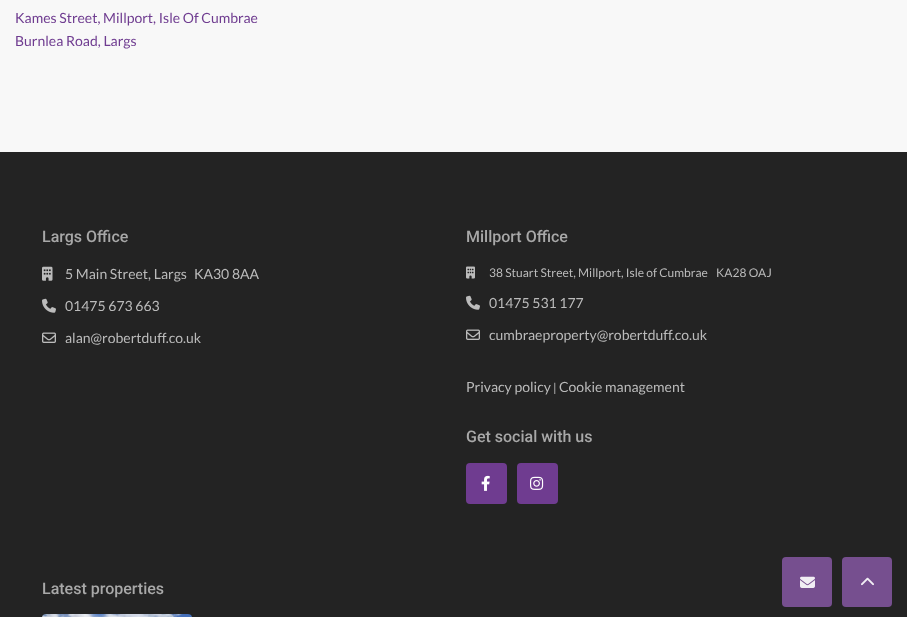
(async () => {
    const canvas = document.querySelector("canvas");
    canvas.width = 907;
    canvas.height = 617;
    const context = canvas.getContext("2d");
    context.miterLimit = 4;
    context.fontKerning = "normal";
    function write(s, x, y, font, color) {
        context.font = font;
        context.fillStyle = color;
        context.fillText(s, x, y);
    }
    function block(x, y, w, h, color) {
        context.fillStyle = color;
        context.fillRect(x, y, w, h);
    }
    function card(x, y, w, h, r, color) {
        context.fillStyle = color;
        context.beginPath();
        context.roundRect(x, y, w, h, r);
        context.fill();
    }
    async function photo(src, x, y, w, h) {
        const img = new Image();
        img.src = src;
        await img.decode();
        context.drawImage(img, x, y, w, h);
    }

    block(0, 0, 907, 617, "rgb(248, 248, 248)");
    write("Kames Street, Millport, Isle Of Cumbrae", 15, 23, "14px Lato", "rgb(111, 60, 144)");
    write("Burnlea Road, Largs", 15, 46, "14px Lato", "rgb(111, 60, 144)");
    block(0, 152, 907, 465, "rgb(35, 35, 35)");
    write("Largs Office", 42, 242, "500 16px Roboto", "rgb(168, 168, 168)");
    await photo("media/1.png", 42, 266, 11, 15);
    write("5 Main Street, Largs KA30 8AA", 65, 279, "14px Lato", "rgb(187, 187, 187)");
    await photo("media/2.png", 42, 298, 14, 15);
    write("01475 673 663", 65, 311, "14px Lato", "rgb(187, 187, 187)");
    await photo("media/3.png", 42, 332, 14, 11);
    write("alan@robertduff.co.uk", 65, 343, "14px Lato", "rgb(187, 187, 187)");
    write("Millport Office", 466, 242, "500 16px Roboto", "rgb(168, 168, 168)");
    await photo("media/4.png", 466, 266, 9, 13);
    write("38 Stuart Street, Millport, Isle of Cumbrae  KA28 OAJ", 489, 277, "12px Lato", "rgb(187, 187, 187)");
    await photo("media/2.png", 466, 295, 14, 15);
    write("01475 531 177", 489, 308, "14px Lato", "rgb(187, 187, 187)");
    await photo("media/3.png", 466, 329, 14, 11);
    write("cumbraeproperty@robertduff.co.uk", 489, 340, "14px Lato", "rgb(187, 187, 187)");
    write("Privacy policy", 466, 392, "14px Lato", "rgb(187, 187, 187)");
    write("|", 553, 392, "12px Lato", "rgb(187, 187, 187)");
    write("Cookie management", 559, 392, "14px Lato", "rgb(187, 187, 187)");
    write("Get social with us", 466, 442, "500 16px Roboto", "rgb(168, 168, 168)");
    card(466, 463, 41, 41, 4, "rgb(111, 60, 144)");
    await photo("media/5.png", 481, 475, 9, 16);
    card(517, 463, 41, 41, 4, "rgb(111, 60, 144)");
    await photo("media/6.png", 530, 476, 14, 14);
    write("Latest properties", 42, 594, "500 16px Roboto", "rgb(168, 168, 168)");
    await photo("media/7.png", 42, 614, 150, 3);
    card(782, 557, 50, 50, 4, "rgb(118, 79, 143)");
    await photo("media/8.png", 800, 576, 15, 12);
    card(842, 557, 50, 50, 4, "rgb(118, 79, 143)");
    await photo("media/9.png", 861, 577, 13, 9);
})();
